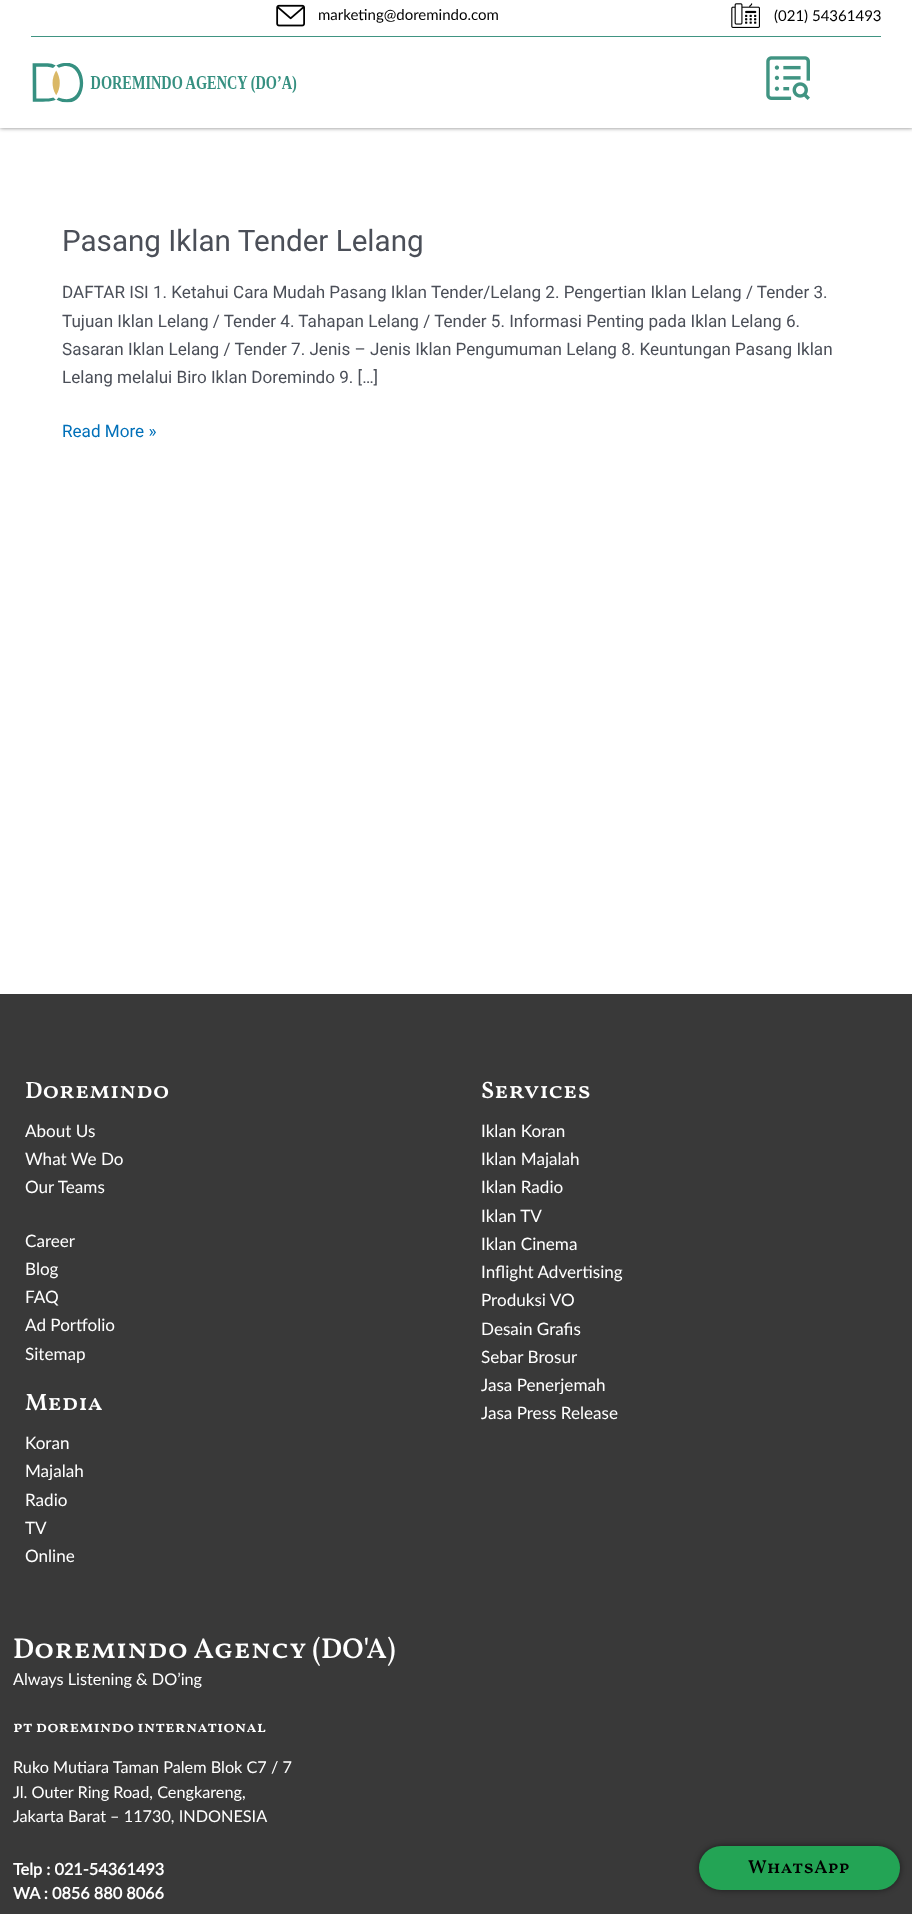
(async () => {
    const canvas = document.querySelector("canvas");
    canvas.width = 912;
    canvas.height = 1914;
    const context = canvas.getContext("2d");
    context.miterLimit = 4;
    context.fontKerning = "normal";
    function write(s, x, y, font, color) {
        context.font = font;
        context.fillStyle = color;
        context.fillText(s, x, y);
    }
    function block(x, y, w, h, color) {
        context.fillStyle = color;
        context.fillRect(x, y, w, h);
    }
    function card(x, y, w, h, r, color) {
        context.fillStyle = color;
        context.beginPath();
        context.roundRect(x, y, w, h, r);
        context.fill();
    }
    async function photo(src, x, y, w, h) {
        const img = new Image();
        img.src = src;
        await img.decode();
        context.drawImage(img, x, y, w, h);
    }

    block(0, 0, 912, 1914, "rgb(255, 255, 255)");
    context.fillStyle = "rgba(0, 0, 0, 0.5)";
    context.filter = "blur(2px)";
    context.beginPath();
    context.rect(0, 0, 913, 128);
    context.fill();
    context.filter = "none";
    block(0, 0, 912, 128, "rgb(255, 255, 255)");
    await photo("media/1.png", 276, 4, 29, 23);
    write("marketing@doremindo.com", 318, 20, "15px Lato", "rgb(0, 0, 0)");
    await photo("media/2.png", 731, 3, 29, 25);
    write("(021) 54361493", 774, 21, "15px Lato", "rgb(0, 0, 0)");
    block(31, 36, 850, 1, "rgb(64, 148, 130)");
    await photo("media/3.png", 32, 63, 265, 40);
    await photo("media/4.png", 766, 56, 44, 44);
    block(0, 994, 912, 920, "rgb(57, 57, 57)");
    context.fillStyle = "rgba(0, 0, 0, 0.5)";
    context.filter = "blur(3px)";
    context.beginPath();
    context.roundRect(699, 1846, 201, 44, 22);
    context.fill();
    context.filter = "none";
    card(699, 1846, 201, 44, 22, "rgb(35, 164, 85)");
    write("WhatsApp", 748, 1873, "600 18.75px Vollkorn SC", "rgb(0, 0, 0)");
    write("Pasang Iklan Tender Lelang", 62, 251, "29.6px Roboto", "rgb(75, 79, 88)");
    write("DAFTAR ISI 1. Ketahui Cara Mudah Pasang Iklan Tender/Lelang 2. Pengertian Iklan Lelang / Tender 3.", 62, 298, "17.1px Roboto", "rgb(75, 79, 88)");
    write("Tujuan Iklan Lelang / Tender 4. Tahapan Lelang / Tender 5. Informasi Penting pada Iklan Lelang 6.", 62, 327, "17.1px Roboto", "rgb(75, 79, 88)");
    write("Sasaran Iklan Lelang / Tender 7. Jenis – Jenis Iklan Pengumuman Lelang 8. Keuntungan Pasang Iklan", 62, 355, "17.1px Roboto", "rgb(75, 79, 88)");
    write("Lelang melalui Biro Iklan Doremindo 9. […]", 62, 383, "17.1px Roboto", "rgb(75, 79, 88)");
    write("Read More »", 62, 437, "17.1px Roboto", "rgb(1, 112, 185)");
    write("Doremindo", 25, 1098, "600 23.75px Vollkorn SC", "rgb(255, 255, 255)");
    write("About Us", 25, 1137, "17.1px Lato", "rgb(255, 255, 255)");
    write("What We Do", 25, 1165, "17.1px Lato", "rgb(255, 255, 255)");
    write("Our Teams", 25, 1193, "17.1px Lato", "rgb(255, 255, 255)");
    write("Career", 25, 1247, "17.1px Lato", "rgb(255, 255, 255)");
    write("Blog", 25, 1275, "17.1px Lato", "rgb(255, 255, 255)");
    write("FAQ", 25, 1303, "17.1px Lato", "rgb(255, 255, 255)");
    write("Ad Portfolio", 25, 1331, "17.1px Lato", "rgb(255, 255, 255)");
    write("Sitemap", 25, 1360, "17.1px Lato", "rgb(255, 255, 255)");
    write("Media", 25, 1410, "600 23.75px Vollkorn SC", "rgb(255, 255, 255)");
    write("Koran", 25, 1449, "17.1px Lato", "rgb(255, 255, 255)");
    write("Majalah", 25, 1477, "17.1px Lato", "rgb(255, 255, 255)");
    write("Radio", 25, 1506, "17.1px Lato", "rgb(255, 255, 255)");
    write("TV", 25, 1534, "17.1px Lato", "rgb(255, 255, 255)");
    write("Online", 25, 1562, "17.1px Lato", "rgb(255, 255, 255)");
    write("Services", 481, 1098, "600 23.75px Vollkorn SC", "rgb(255, 255, 255)");
    write("Iklan Koran", 481, 1137, "17.1px Lato", "rgb(255, 255, 255)");
    write("Iklan Majalah", 481, 1165, "17.1px Lato", "rgb(255, 255, 255)");
    write("Iklan Radio", 481, 1193, "17.1px Lato", "rgb(255, 255, 255)");
    write("Iklan TV", 481, 1222, "17.1px Lato", "rgb(255, 255, 255)");
    write("Iklan Cinema", 481, 1250, "17.1px Lato", "rgb(255, 255, 255)");
    write("Inflight Advertising", 481, 1278, "17.1px Lato", "rgb(255, 255, 255)");
    write("Produksi VO", 481, 1306, "17.1px Lato", "rgb(255, 255, 255)");
    write("Desain Grafis", 481, 1335, "17.1px Lato", "rgb(255, 255, 255)");
    write("Sebar Brosur", 481, 1363, "17.1px Lato", "rgb(255, 255, 255)");
    write("Jasa Penerjemah", 481, 1391, "17.1px Lato", "rgb(255, 255, 255)");
    write("Jasa Press Release", 481, 1419, "17.1px Lato", "rgb(255, 255, 255)");
    write("Doremindo Agency (DO'A)", 13, 1658, "600 28.75px Vollkorn SC", "rgb(255, 255, 255)");
    write("Always Listening & DO’ing", 13, 1685, "16.25px Lato", "rgb(255, 255, 255)");
    write("pt doremindo international", 13, 1732, "600 16.25px Vollkorn SC", "rgb(255, 255, 255)");
    write("Ruko Mutiara Taman Palem Blok C7 / 7", 13, 1773, "16.25px Lato", "rgb(255, 255, 255)");
    write("Jl. Outer Ring Road, Cengkareng,", 13, 1798, "16.25px Lato", "rgb(255, 255, 255)");
    write("Jakarta Barat – 11730, INDONESIA", 13, 1822, "16.25px Lato", "rgb(255, 255, 255)");
    write("Telp : 021-54361493", 13, 1875, "bold 16.25px Lato", "rgb(255, 255, 255)");
    write("WA : 0856 880 8066", 13, 1899, "bold 16.25px Lato", "rgb(255, 255, 255)");
})();
